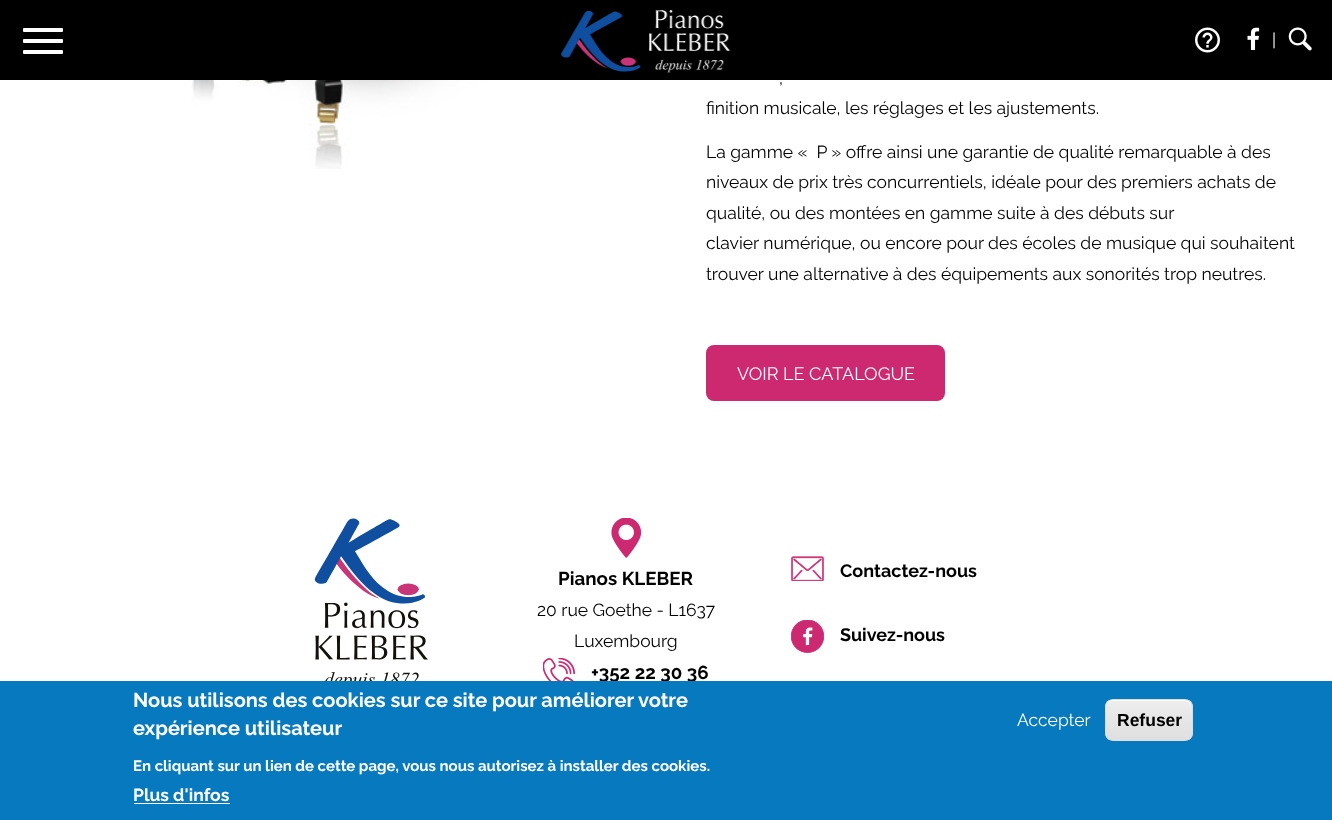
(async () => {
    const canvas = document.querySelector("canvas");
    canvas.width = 1332;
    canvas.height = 820;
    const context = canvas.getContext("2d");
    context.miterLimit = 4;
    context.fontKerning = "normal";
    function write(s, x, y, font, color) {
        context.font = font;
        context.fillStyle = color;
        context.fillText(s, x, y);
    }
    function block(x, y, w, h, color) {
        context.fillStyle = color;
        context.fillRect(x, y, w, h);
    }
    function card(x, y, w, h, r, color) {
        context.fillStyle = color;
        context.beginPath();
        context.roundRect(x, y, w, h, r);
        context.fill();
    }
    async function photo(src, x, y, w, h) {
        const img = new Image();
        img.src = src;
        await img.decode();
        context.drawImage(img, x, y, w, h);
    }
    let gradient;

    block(0, 0, 1332, 820, "rgb(255, 255, 255)");
    block(0, 0, 1332, 80, "rgb(0, 0, 0)");
    card(23, 28, 40, 4, 1, "rgb(255, 255, 255)");
    card(23, 39, 40, 4, 1, "rgb(255, 255, 255)");
    card(23, 50, 40, 4, 1, "rgb(255, 255, 255)");
    await photo("media/1.png", 561, 10, 170, 63);
    await photo("media/2.png", 1195, 27, 25, 26);
    await photo("media/3.png", 1247, 27, 13, 23);
    write("|", 1272, 46, "17.5px Raleway", "rgb(255, 255, 255)");
    await photo("media/4.png", 1288, 27, 24, 24);
    await photo("media/5.png", 189, 80, 320, 89);
    write(",", 779, 84, "17.5px Raleway", "rgb(0, 0, 0)");
    write("finition musicale, les réglages et les ajustements.", 706, 114, "17.5px Raleway", "rgb(0, 0, 0)");
    write("La gamme «  P » offre ainsi une garantie de qualité remarquable à des", 706, 158, "17.5px Raleway", "rgb(0, 0, 0)");
    write("niveaux de prix très concurrentiels, idéale pour des premiers achats de", 706, 188, "17.5px Raleway", "rgb(0, 0, 0)");
    write("qualité, ou des montées en gamme suite à des débuts sur", 706, 219, "17.5px Raleway", "rgb(0, 0, 0)");
    write("clavier numérique, ou encore pour des écoles de musique qui souhaitent", 706, 249, "17.5px Raleway", "rgb(0, 0, 0)");
    write("trouver une alternative à des équipements aux sonorités trop neutres.", 706, 280, "17.5px Raleway", "rgb(0, 0, 0)");
    context.fillStyle = "rgb(205, 41, 113)";
    context.beginPath();
    context.roundRect(707.5, 346.5, 236, 53, 6.5);
    context.fill();
    context.strokeStyle = "rgb(205, 41, 113)";
    context.lineWidth = 3;
    context.stroke();
    write("VOIR LE CATALOGUE", 737, 380, "18px Raleway", "rgb(255, 255, 255)");
    await photo("media/6.png", 314, 518, 114, 163);
    await photo("media/7.png", 611, 518, 30, 40);
    write("Pianos KLEBER", 558, 585, "bold 18.75px Raleway", "rgb(0, 0, 0)");
    write("20 rue Goethe - L1637", 537, 616, "17.5px Raleway", "rgb(0, 0, 0)");
    write("Luxembourg", 574, 647, "17.5px Raleway", "rgb(0, 0, 0)");
    await photo("media/8.png", 543, 658, 32, 23);
    write("+352 22 30 36", 591, 679, "bold 18.75px Raleway", "rgb(0, 0, 0)");
    await photo("media/9.png", 791, 556, 33, 25);
    write("Contactez-nous", 840, 577, "bold 18px Raleway", "rgb(0, 0, 0)");
    await photo("media/10.png", 791, 620, 33, 33);
    write("Suivez-nous", 840, 641, "bold 18px Raleway", "rgb(0, 0, 0)");
    block(0, 681, 1332, 139, "rgb(7, 121, 191)");
    write("Nous utilisons des cookies sur ce site pour améliorer votre", 133, 707, "bold 20px Raleway", "rgb(255, 255, 255)");
    write("expérience utilisateur", 133, 735, "bold 20px Raleway", "rgb(255, 255, 255)");
    write("En cliquant sur un lien de cette page, vous nous autorisez à installer des cookies.", 133, 771, "bold 15px Raleway", "rgb(255, 255, 255)");
    write("Plus d'infos", 133, 801, "bold 17.5px Raleway", "rgb(255, 255, 255)");
    block(134, 803, 96, 1, "rgb(255, 255, 255)");
    write("Accepter", 1017, 726, "17.5px Raleway", "rgb(255, 255, 255)");
    context.save();
    context.beginPath();
    context.roundRect(1105, 699, 88, 42, 8);
    context.clip();
    gradient = context.createLinearGradient(1149, 700, 1149, 740);
    gradient.addColorStop(0.05, "rgb(237, 237, 237)");
    gradient.addColorStop(1, "rgb(223, 223, 223)");
    context.fillStyle = gradient;
    context.fillRect(1105, 700, 88, 40);
    context.restore();
    context.beginPath();
    context.moveTo(1112, 701);
    context.lineTo(1185, 701);
    context.bezierCurveTo(1188, 701, 1191, 704, 1191, 708);
    context.bezierCurveTo(1191, 697, 1182, 700, 1173, 700);
    context.lineTo(1124, 700);
    context.bezierCurveTo(1115, 700, 1106, 697, 1106, 708);
    context.bezierCurveTo(1106, 704, 1109, 701, 1112, 701);
    context.closePath();
    context.fill();
    context.beginPath();
    context.roundRect(1105.5, 699.5, 87, 41, 7.5);
    context.strokeStyle = "rgb(220, 220, 220)";
    context.lineWidth = 1;
    context.stroke();
    write("Refuser", 1117, 726, "bold 17.5px Liberation Sans", "rgb(0, 0, 0)");
})();
